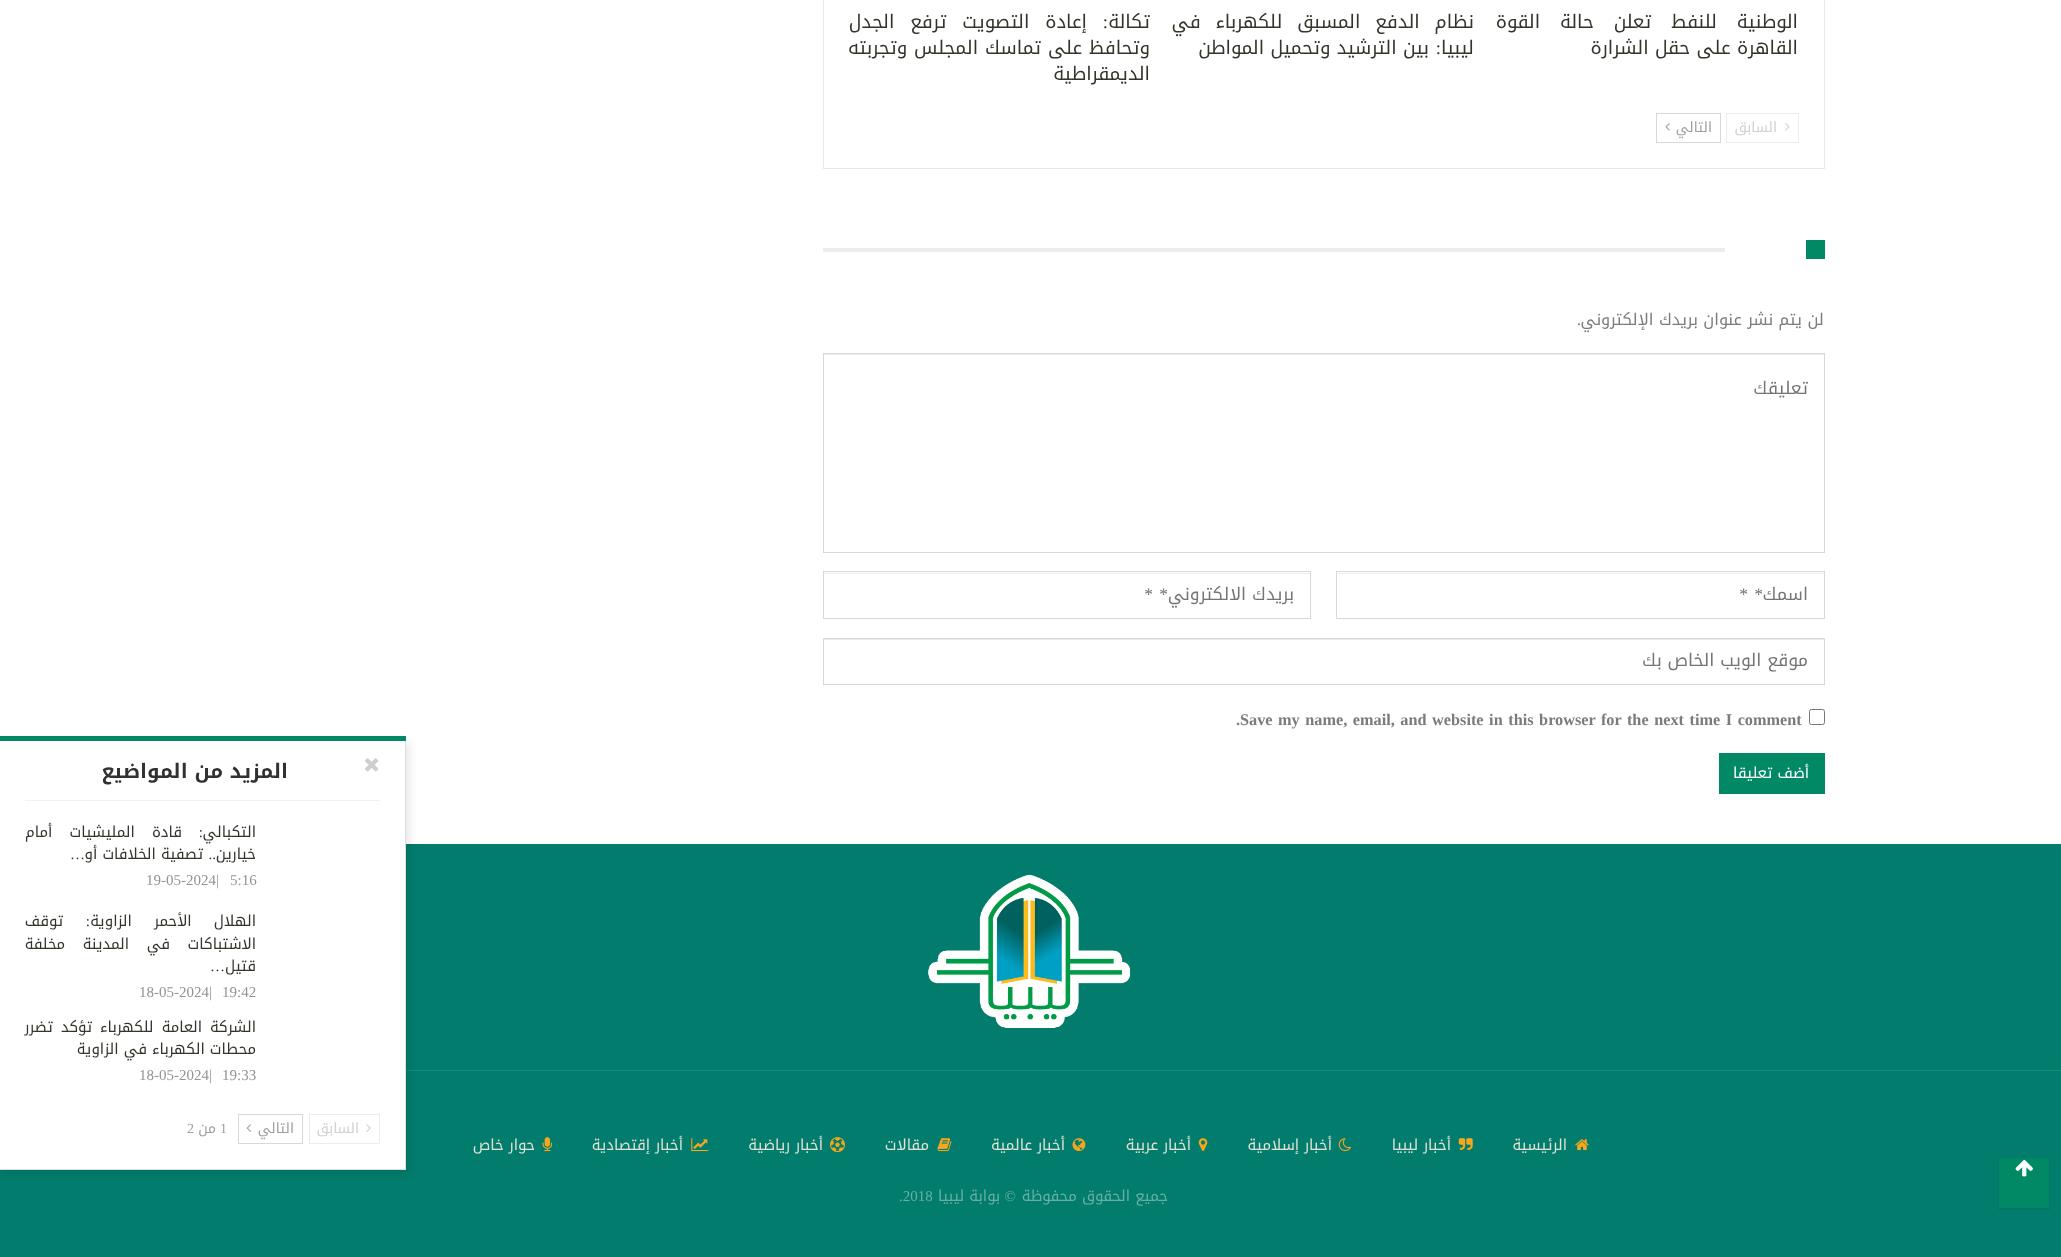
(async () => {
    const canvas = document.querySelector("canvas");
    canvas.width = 2061;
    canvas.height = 1257;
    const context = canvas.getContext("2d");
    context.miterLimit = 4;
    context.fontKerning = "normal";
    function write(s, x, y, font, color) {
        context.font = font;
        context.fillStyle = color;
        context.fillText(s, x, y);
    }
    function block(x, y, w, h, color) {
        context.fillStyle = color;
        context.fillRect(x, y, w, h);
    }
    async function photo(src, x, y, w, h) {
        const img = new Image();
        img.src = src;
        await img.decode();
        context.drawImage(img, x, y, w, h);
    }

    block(0, 0, 2061, 1257, "rgb(255, 255, 255)");
    context.strokeStyle = "rgb(232, 232, 232)";
    context.strokeRect(823.5, -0.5, 1001, 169);
    context.wordSpacing = "13.5px";
    context.direction = "rtl";
    write("الوطنية للنفط تعلن حالة القوة", 1798, 28, "18.75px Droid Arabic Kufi", "rgb(49, 54, 43)");
    context.wordSpacing = "0px";
    write("القاهرة على حقل الشرارة", 1798, 54, "18.75px Droid Arabic Kufi", "rgb(49, 54, 43)");
    context.wordSpacing = "8.5px";
    write("نظام الدفع المسبق للكهرباء في", 1474, 28, "18.75px Droid Arabic Kufi", "rgb(49, 54, 43)");
    context.wordSpacing = "0px";
    write("ليبيا", 1474, 54, "18.75px Droid Arabic Kufi", "rgb(49, 54, 43)");
    write(":", 1441, 54, "18.75px Liberation Serif", "rgb(49, 54, 43)");
    write("بين الترشيد وتحميل المواطن", 1429, 54, "18.75px Droid Arabic Kufi", "rgb(49, 54, 43)");
    write("تكالة", 1150, 28, "18.75px Droid Arabic Kufi", "rgb(49, 54, 43)");
    write(":", 1108, 28, "18.75px Liberation Serif", "rgb(49, 54, 43)");
    context.wordSpacing = "9.5px";
    write("إعادة التصويت ترفع الجدل", 1087, 28, "18.75px Droid Arabic Kufi", "rgb(49, 54, 43)");
    context.wordSpacing = "0.5px";
    write("وتحافظ على تماسك المجلس وتجربته", 1150, 54, "18.75px Droid Arabic Kufi", "rgb(49, 54, 43)");
    context.wordSpacing = "0px";
    write("الديمقراطية", 1150, 80, "18.75px Droid Arabic Kufi", "rgb(49, 54, 43)");
    context.strokeStyle = "rgb(236, 236, 236)";
    context.strokeRect(1726.5, 113.5, 72, 29);
    await photo("media/1.png", 1785, 123, 5, 8);
    write("السابق", 1777, 132, "14px Droid Arabic Kufi", "rgb(207, 207, 207)");
    context.strokeStyle = "rgb(216, 216, 216)";
    context.strokeRect(1656.5, 113.5, 64, 29);
    write("التالي", 1712, 132, "14px Droid Arabic Kufi", "rgb(158, 158, 158)");
    await photo("media/2.png", 1665, 123, 5, 8);
    block(1806, 240, 19, 19, "rgb(1, 137, 101)");
    block(823, 248, 902, 4, "rgb(237, 237, 237)");
    write("لن يتم نشر عنوان بريدك الإلكتروني", 1824, 325, "16.25px Droid Arabic Kufi", "rgb(123, 123, 123)");
    write(".", 1581, 325, "16.25px Liberation Serif", "rgb(123, 123, 123)");
    block(824, 354, 1000, 1, "rgb(236, 236, 236)");
    context.strokeRect(823.5, 353.5, 1001, 199);
    write("تعليقك", 1808, 394, "17.5px Droid Arabic Kufi", "rgb(117, 117, 117)");
    block(1338, 573, 486, 1, "rgb(236, 236, 236)");
    context.strokeRect(1336.5, 571.5, 488, 47);
    write("اسمك", 1808, 600, "17.5px Droid Arabic Kufi", "rgb(117, 117, 117)");
    context.wordSpacing = "2px";
    write("* *", 1763, 600, "17.5px Liberation Serif", "rgb(117, 117, 117)");
    block(824, 573, 486, 1, "rgb(236, 236, 236)");
    context.strokeRect(823.5, 571.5, 487, 47);
    context.wordSpacing = "0px";
    write("بريدك الالكتروني", 1294, 600, "17.5px Droid Arabic Kufi", "rgb(117, 117, 117)");
    write("*", 1168, 600, "17.5px Liberation Serif", "rgb(117, 117, 117)");
    write("*", 1153, 600, "17.5px Liberation Serif", "rgb(117, 117, 117)");
    block(824, 639, 1000, 1, "rgb(236, 236, 236)");
    context.strokeRect(823.5, 638.5, 1001, 46);
    write("موقع الويب الخاص بك", 1808, 666, "17.5px Droid Arabic Kufi", "rgb(117, 117, 117)");
    context.beginPath();
    context.roundRect(1809.5, 709.5, 15, 15, 2);
    context.strokeStyle = "rgb(118, 118, 118)";
    context.stroke();
    context.wordSpacing = "1.5px";
    context.direction = "ltr";
    write("Save my name, email, and website in this browser for the next time I comment", 1240, 725, "bold 16.25px Liberation Serif", "rgb(123, 123, 123)");
    context.wordSpacing = "0px";
    write(".", 1236, 725, "bold 16.25px Liberation Serif", "rgb(123, 123, 123)");
    block(1719, 753, 106, 41, "rgb(1, 137, 101)");
    context.direction = "rtl";
    write("أضف تعليقا", 1809, 778, "15px Droid Arabic Kufi", "rgb(255, 255, 255)");
    block(0, 844, 2061, 413, "rgb(2, 124, 108)");
    block(406, 1070, 1655, 1, "rgb(27, 137, 123)");
    context.fillStyle = "rgba(0, 0, 0, 0.1)";
    context.filter = "blur(5px)";
    context.beginPath();
    context.rect(3, 743, 406, 430);
    context.fill();
    context.filter = "none";
    block(0, 741, 405, 428, "rgb(255, 255, 255)");
    block(405, 740, 1, 430, "rgb(221, 221, 221)");
    block(0, 1169, 406, 1, "rgb(221, 221, 221)");
    block(0, 736, 406, 5, "rgb(1, 137, 101)");
    block(25, 800, 355, 1, "rgb(240, 240, 240)");
    await photo("media/3.png", 365, 758, 14, 14);
    write("المزيد من المواضيع", 288, 778, "bold 20px Droid Arabic Kufi", "rgb(49, 49, 49)");
    write("التكبالي", 256, 837, "15px Droid Arabic Kufi", "rgb(49, 54, 43)");
    write(":", 203, 837, "15px Liberation Serif", "rgb(49, 54, 43)");
    context.wordSpacing = "12px";
    write("قادة المليشيات أمام", 182, 837, "15px Droid Arabic Kufi", "rgb(49, 54, 43)");
    context.wordSpacing = "0px";
    write("خيارين", 256, 859, "15px Droid Arabic Kufi", "rgb(49, 54, 43)");
    write("..", 216, 859, "15px Liberation Serif", "rgb(49, 54, 43)");
    write("تصفية الخلافات أو", 203, 859, "15px Droid Arabic Kufi", "rgb(49, 54, 43)");
    write("…", 85, 859, "15px Liberation Serif", "rgb(49, 54, 43)");
    context.direction = "ltr";
    write("5:16", 230, 885, "15px Liberation Serif", "rgb(146, 149, 143)");
    write("19-05-2024|", 146, 885, "15px Liberation Serif", "rgb(146, 149, 143)");
    context.wordSpacing = "17px";
    context.direction = "rtl";
    write("الهلال الأحمر الزاوية", 256, 926, "15px Droid Arabic Kufi", "rgb(49, 54, 43)");
    context.wordSpacing = "0px";
    write(":", 90, 926, "15px Liberation Serif", "rgb(49, 54, 43)");
    write("توقف", 63, 926, "15px Droid Arabic Kufi", "rgb(49, 54, 43)");
    context.wordSpacing = "12.5px";
    write("الاشتباكات في المدينة مخلفة", 256, 949, "15px Droid Arabic Kufi", "rgb(49, 54, 43)");
    context.wordSpacing = "0px";
    write("قتيل", 256, 971, "15px Droid Arabic Kufi", "rgb(49, 54, 43)");
    write("…", 225, 971, "15px Liberation Serif", "rgb(49, 54, 43)");
    context.direction = "ltr";
    write("19:42", 222, 997, "15px Liberation Serif", "rgb(146, 149, 143)");
    write("18-05-2024|", 139, 997, "15px Liberation Serif", "rgb(146, 149, 143)");
    context.wordSpacing = "3px";
    context.direction = "rtl";
    write("الشركة العامة للكهرباء تؤكد تضرر", 256, 1032, "15px Droid Arabic Kufi", "rgb(49, 54, 43)");
    context.wordSpacing = "0px";
    write("محطات الكهرباء في الزاوية", 256, 1054, "15px Droid Arabic Kufi", "rgb(49, 54, 43)");
    context.direction = "ltr";
    write("19:33", 222, 1080, "15px Liberation Serif", "rgb(146, 149, 143)");
    write("18-05-2024|", 139, 1080, "15px Liberation Serif", "rgb(146, 149, 143)");
    context.strokeStyle = "rgb(236, 236, 236)";
    context.strokeRect(309.5, 1114.5, 70, 29);
    await photo("media/4.png", 366, 1124, 5, 8);
    context.direction = "rtl";
    write("السابق", 359, 1133, "14px Droid Arabic Kufi", "rgb(207, 207, 207)");
    context.strokeStyle = "rgb(216, 216, 216)";
    context.strokeRect(238.5, 1114.5, 64, 29);
    write("التالي", 294, 1133, "14px Droid Arabic Kufi", "rgb(158, 158, 158)");
    await photo("media/5.png", 246, 1124, 5, 8);
    context.direction = "ltr";
    write("1", 220, 1133, "14px Liberation Serif", "rgb(158, 158, 158)");
    context.direction = "rtl";
    write("من", 216, 1133, "14px Droid Arabic Kufi", "rgb(158, 158, 158)");
    context.direction = "ltr";
    write("2", 187, 1133, "14px Liberation Serif", "rgb(158, 158, 158)");
    context.fillStyle = "rgba(0, 0, 0, 0.09)";
    context.filter = "blur(1px)";
    context.beginPath();
    context.rect(1999, 1159, 50, 50);
    context.fill();
    context.filter = "none";
    block(1999, 1158, 50, 50, "rgb(1, 137, 101)");
    await photo("media/6.png", 2015, 1160, 18, 17);
    await photo("media/7.png", 928, 874, 203, 154);
    await photo("media/8.png", 1575, 1139, 14, 11);
    context.direction = "rtl";
    write("الرئيسية", 1567, 1150, "15px Droid Arabic Kufi", "rgb(224, 226, 212)");
    await photo("media/9.png", 1458, 1138, 15, 12);
    write("أخبار ليبيا", 1451, 1150, "15px Droid Arabic Kufi", "rgb(224, 226, 212)");
    await photo("media/10.png", 1338, 1138, 13, 14);
    write("أخبار إسلامية", 1332, 1150, "15px Droid Arabic Kufi", "rgb(224, 226, 212)");
    await photo("media/11.png", 1198, 1138, 10, 13);
    write("أخبار عربية", 1191, 1150, "15px Droid Arabic Kufi", "rgb(224, 226, 212)");
    await photo("media/12.png", 1072, 1138, 14, 14);
    write("أخبار عالمية", 1065, 1150, "15px Droid Arabic Kufi", "rgb(224, 226, 212)");
    await photo("media/13.png", 937, 1138, 15, 14);
    write("مقالات", 929, 1150, "15px Droid Arabic Kufi", "rgb(224, 226, 212)");
    await photo("media/14.png", 830, 1137, 15, 16);
    write("أخبار رياضية", 823, 1150, "15px Droid Arabic Kufi", "rgb(224, 226, 212)");
    await photo("media/15.png", 691, 1138, 18, 14);
    write("أخبار إقتصادية", 683, 1150, "15px Droid Arabic Kufi", "rgb(224, 226, 212)");
    await photo("media/16.png", 542, 1137, 11, 15);
    write("حوار خاص", 535, 1150, "15px Droid Arabic Kufi", "rgb(224, 226, 212)");
    write("جميع الحقوق محفوظة", 1168, 1201, "15px Droid Arabic Kufi", "rgb(103, 176, 167)");
    write("©", 1016, 1201, "15px Liberation Serif", "rgb(103, 176, 167)");
    write("بوابة ليبيا", 1000, 1201, "15px Droid Arabic Kufi", "rgb(103, 176, 167)");
    context.direction = "ltr";
    write(".2018", 899, 1201, "15px Liberation Serif", "rgb(103, 176, 167)");
})();
